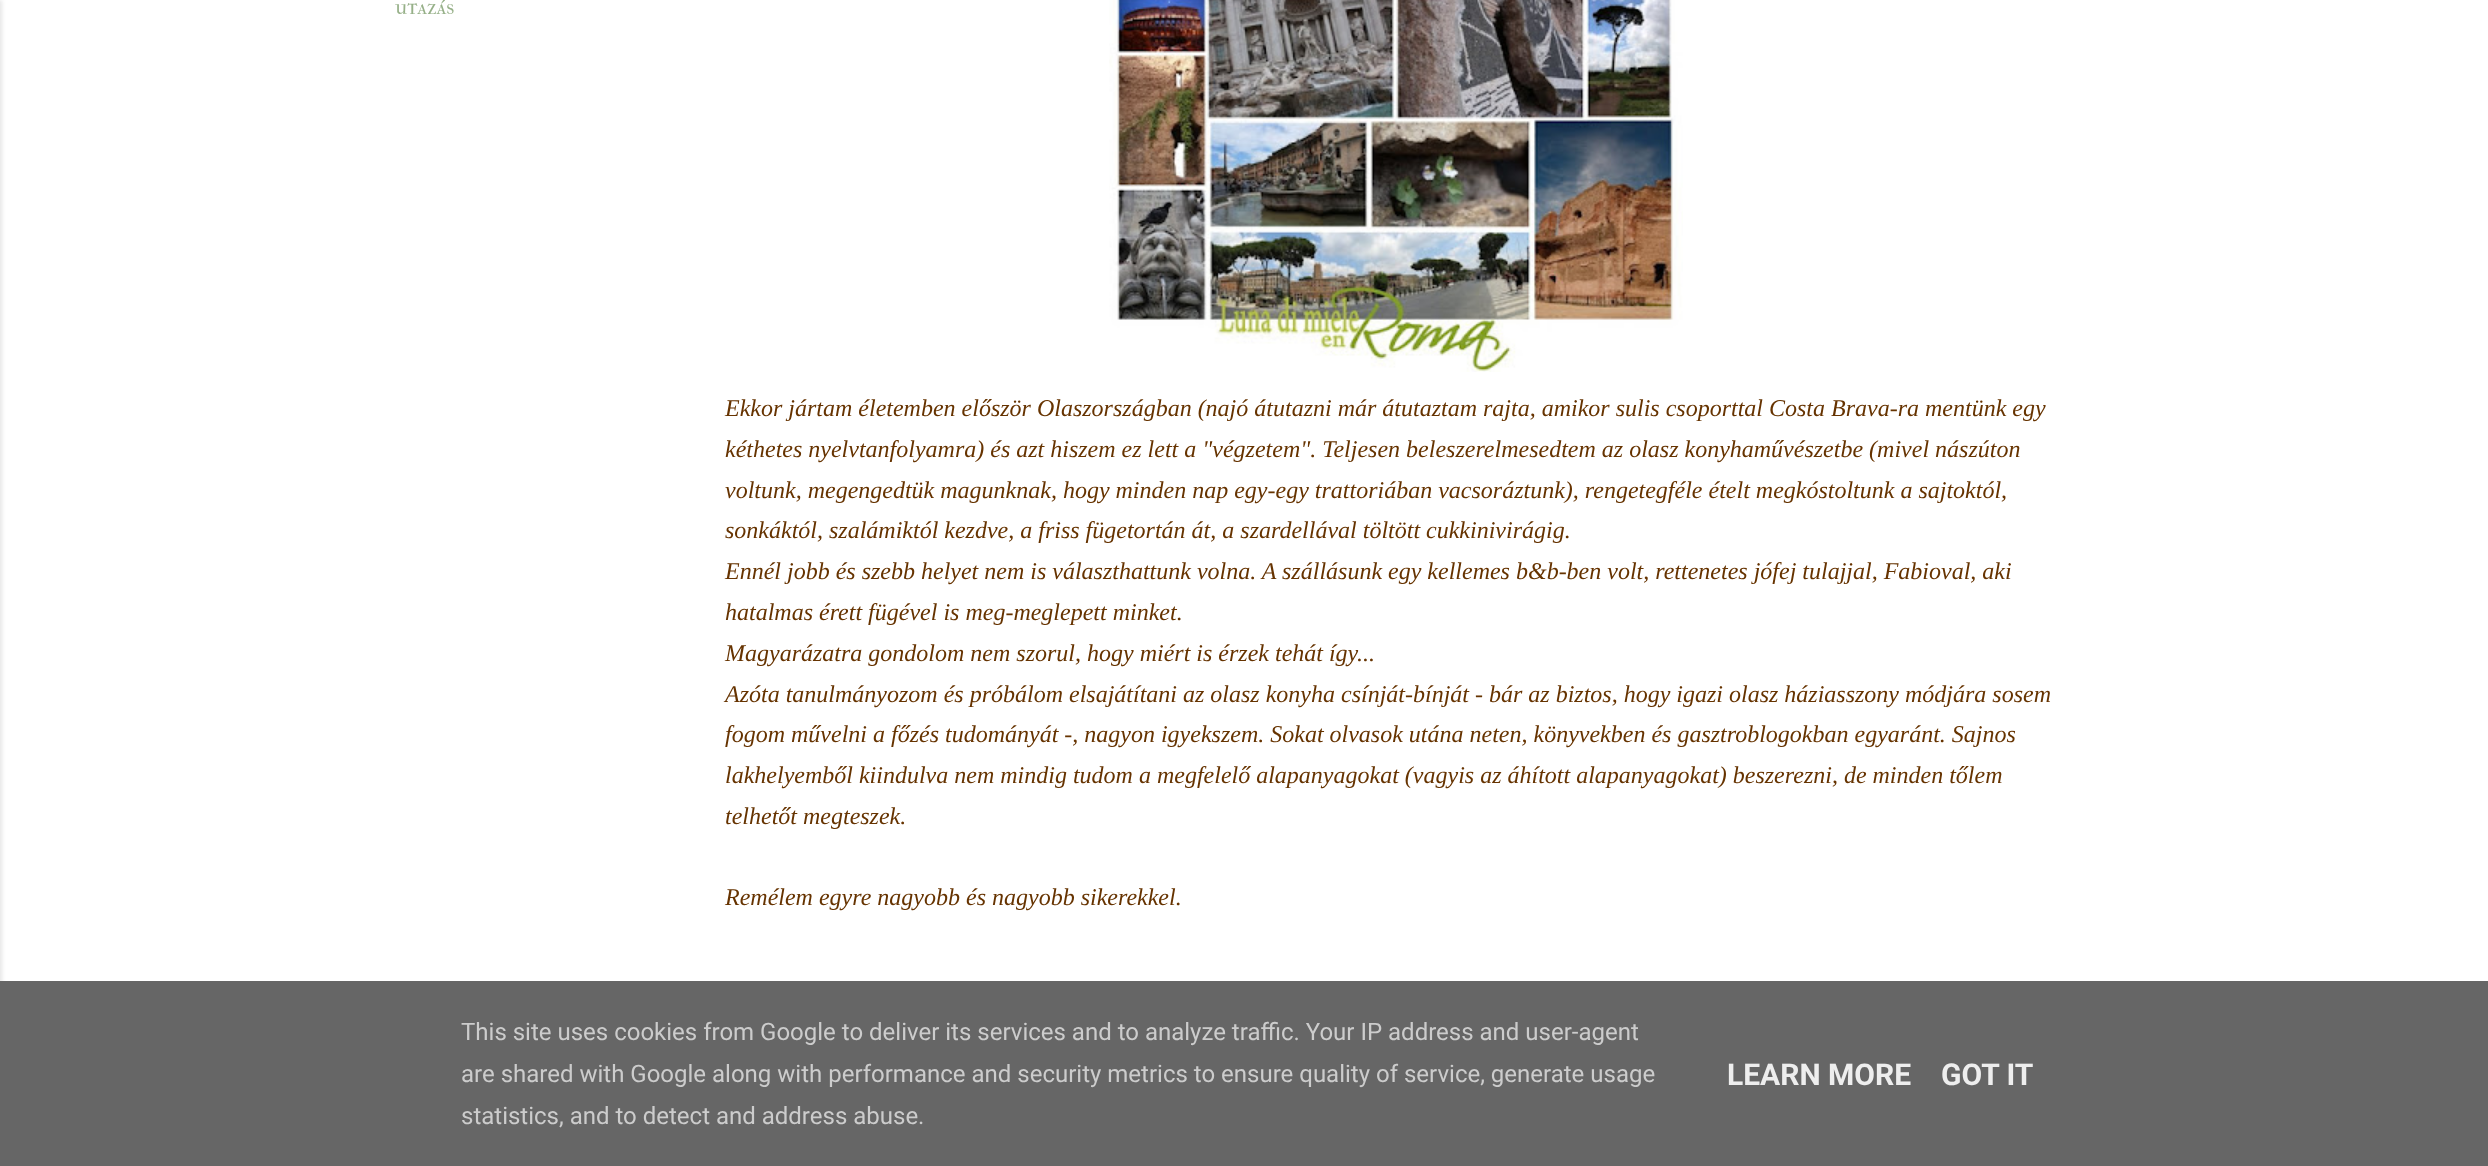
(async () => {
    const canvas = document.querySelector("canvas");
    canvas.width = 2488;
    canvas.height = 1166;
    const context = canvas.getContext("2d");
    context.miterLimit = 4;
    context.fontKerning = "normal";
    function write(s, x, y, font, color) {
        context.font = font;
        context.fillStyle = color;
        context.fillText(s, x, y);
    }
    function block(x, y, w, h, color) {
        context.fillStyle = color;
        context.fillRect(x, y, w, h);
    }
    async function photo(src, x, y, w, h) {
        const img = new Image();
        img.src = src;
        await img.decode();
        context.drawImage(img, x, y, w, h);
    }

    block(0, 0, 2488, 1166, "rgb(255, 255, 255)");
    context.fillStyle = "rgba(0, 0, 0, 0.1)";
    context.filter = "blur(2px)";
    context.beginPath();
    context.rect(-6, 0, 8, 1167);
    context.fill();
    context.filter = "none";
    write("utazás", 395, 14, "21px IM FELL French Canon SC", "rgb(150, 176, 136)");
    await photo("media/1.png", 1109, 0, 574, 372);
    write("Ekkor jártam életemben először Olaszországban (najó átutazni már átutaztam rajta, amikor sulis csoporttal Costa Brava-ra mentünk egy", 725, 416, "italic 24px Liberation Serif", "rgb(102, 51, 0)");
    write("kéthetes nyelvtanfolyamra) és azt hiszem ez lett a \"végzetem\". Teljesen beleszerelmesedtem az olasz konyhaművészetbe (mivel nászúton", 725, 457, "italic 24px Liberation Serif", "rgb(102, 51, 0)");
    write("voltunk, megengedtük magunknak, hogy minden nap egy-egy trattoriában vacsoráztunk), rengetegféle ételt megkóstoltunk a sajtoktól,", 725, 498, "italic 24px Liberation Serif", "rgb(102, 51, 0)");
    write("sonkáktól, szalámiktól kezdve, a friss fügetortán át, a szardellával töltött cukkinivirágig.", 725, 538, "italic 24px Liberation Serif", "rgb(102, 51, 0)");
    write("Ennél jobb és szebb helyet nem is választhattunk volna. A szállásunk egy kellemes b&b-ben volt, rettenetes jófej tulajjal, Fabioval, aki", 725, 579, "italic 24px Liberation Serif", "rgb(102, 51, 0)");
    write("hatalmas érett fügével is meg-meglepett minket.", 725, 620, "italic 24px Liberation Serif", "rgb(102, 51, 0)");
    write("Magyarázatra gondolom nem szorul, hogy miért is érzek tehát így...", 725, 661, "italic 24px Liberation Serif", "rgb(102, 51, 0)");
    write("Azóta tanulmányozom és próbálom elsajátítani az olasz konyha csínját-bínját - bár az biztos, hogy igazi olasz háziasszony módjára sosem", 725, 702, "italic 24px Liberation Serif", "rgb(102, 51, 0)");
    write("fogom művelni a főzés tudományát -, nagyon igyekszem. Sokat olvasok utána neten, könyvekben és gasztroblogokban egyaránt. Sajnos", 725, 742, "italic 24px Liberation Serif", "rgb(102, 51, 0)");
    write("lakhelyemből kiindulva nem mindig tudom a megfelelő alapanyagokat (vagyis az áhított alapanyagokat) beszerezni, de minden tőlem", 725, 783, "italic 24px Liberation Serif", "rgb(102, 51, 0)");
    write("telhetőt megteszek.", 725, 824, "italic 24px Liberation Serif", "rgb(102, 51, 0)");
    write("Remélem egyre nagyobb és nagyobb sikerekkel.", 725, 905, "italic 24px Liberation Serif", "rgb(102, 51, 0)");
    block(0, 981, 2488, 185, "rgb(102, 102, 102)");
    write("This site uses cookies from Google to deliver its services and to analyze traffic. Your IP address and user-agent", 461, 1040, "24px Roboto", "rgb(204, 204, 204)");
    write("are shared with Google along with performance and security metrics to ensure quality of service, generate usage", 461, 1082, "24px Roboto", "rgb(204, 204, 204)");
    write("statistics, and to detect and address abuse.", 461, 1124, "24px Roboto", "rgb(204, 204, 204)");
    write("LEARN MORE", 1727, 1085, "bold 30px Roboto", "rgb(238, 238, 238)");
    write("GOT IT", 1941, 1085, "bold 30px Roboto", "rgb(238, 238, 238)");
})();
